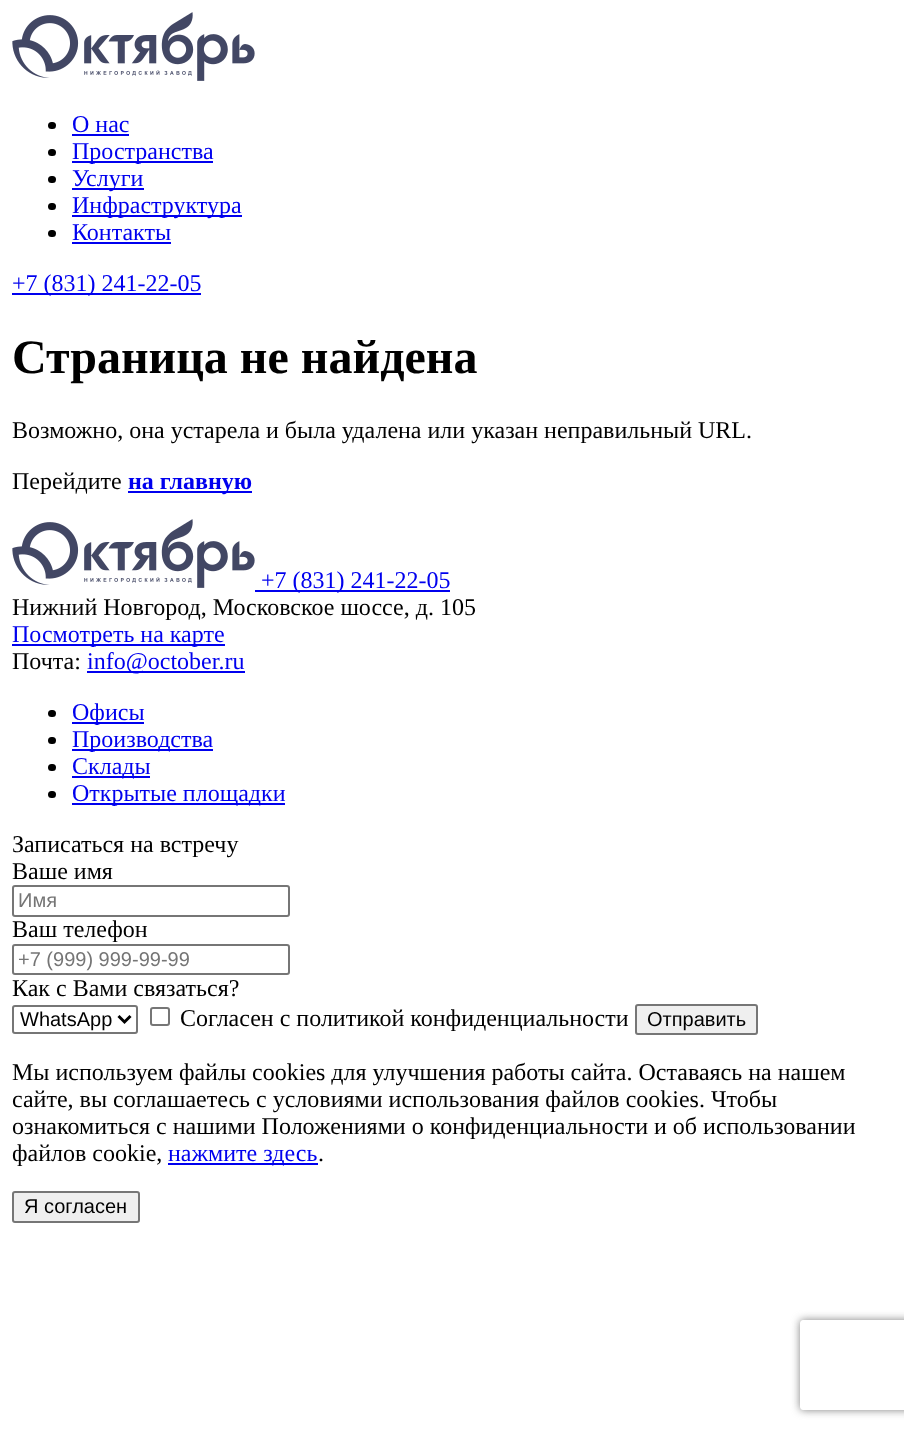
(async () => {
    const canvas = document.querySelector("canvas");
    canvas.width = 904;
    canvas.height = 1431;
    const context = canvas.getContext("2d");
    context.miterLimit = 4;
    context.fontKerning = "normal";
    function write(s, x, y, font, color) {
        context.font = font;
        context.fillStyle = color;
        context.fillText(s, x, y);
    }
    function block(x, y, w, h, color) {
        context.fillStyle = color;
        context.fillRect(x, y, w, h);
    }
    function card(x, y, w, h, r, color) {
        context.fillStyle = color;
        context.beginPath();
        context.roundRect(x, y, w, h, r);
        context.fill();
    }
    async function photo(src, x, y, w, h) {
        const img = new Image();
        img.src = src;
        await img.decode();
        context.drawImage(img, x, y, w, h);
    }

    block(0, 0, 904, 1431, "rgb(255, 255, 255)");
    await photo("media/1.png", 12, 12, 243, 69);
    card(48, 122, 8, 7, 3.5, "rgb(0, 0, 0)");
    write("О нас", 72, 132, "24px Liberation Serif", "rgb(0, 0, 238)");
    block(72, 134, 57, 2, "rgb(0, 0, 238)");
    card(48, 149, 8, 7, 3.5, "rgb(0, 0, 0)");
    block(72, 161, 141, 2, "rgb(0, 0, 238)");
    write("Пространства", 72, 159, "24px Liberation Serif", "rgb(0, 0, 238)");
    card(48, 176, 8, 7, 3.5, "rgb(0, 0, 0)");
    block(72, 188, 72, 2, "rgb(0, 0, 238)");
    write("Услуги", 72, 186, "24px Liberation Serif", "rgb(0, 0, 238)");
    card(48, 203, 8, 7, 3.5, "rgb(0, 0, 0)");
    block(72, 215, 170, 2, "rgb(0, 0, 238)");
    write("Инфраструктура", 72, 213, "24px Liberation Serif", "rgb(0, 0, 238)");
    card(48, 230, 8, 7, 3.5, "rgb(0, 0, 0)");
    write("Контакты", 72, 240, "24px Liberation Serif", "rgb(0, 0, 238)");
    block(72, 242, 99, 2, "rgb(0, 0, 238)");
    block(12, 293, 189, 2, "rgb(0, 0, 238)");
    write("+7 (831) 241-22-05", 12, 291, "24px Liberation Serif", "rgb(0, 0, 238)");
    write("Страница не найдена", 12, 373, "bold 48px Liberation Serif", "rgb(0, 0, 0)");
    write("Возможно, она устарела и была удалена или указан неправильный URL.", 12, 438, "24px Liberation Serif", "rgb(0, 0, 0)");
    write("Перейдите", 12, 489, "24px Liberation Serif", "rgb(0, 0, 0)");
    block(128, 491, 124, 2, "rgb(0, 0, 238)");
    write("на главную", 128, 489, "bold 24px Liberation Serif", "rgb(0, 0, 238)");
    await photo("media/1.png", 12, 519, 243, 69);
    block(255, 590, 195, 2, "rgb(0, 0, 238)");
    write("+7 (831) 241-22-05", 261, 588, "24px Liberation Serif", "rgb(0, 0, 238)");
    write("Нижний Новгород, Московское шоссе, д. 105", 12, 615, "24px Liberation Serif", "rgb(0, 0, 0)");
    block(12, 644, 213, 2, "rgb(0, 0, 238)");
    write("Посмотреть на карте", 12, 642, "24px Liberation Serif", "rgb(0, 0, 238)");
    write("Почта:", 12, 669, "24px Liberation Serif", "rgb(0, 0, 0)");
    block(87, 671, 158, 2, "rgb(0, 0, 238)");
    write("info@october.ru", 87, 669, "24px Liberation Serif", "rgb(0, 0, 238)");
    card(48, 710, 8, 7, 3.5, "rgb(0, 0, 0)");
    block(72, 722, 72, 2, "rgb(0, 0, 238)");
    write("Офисы", 72, 720, "24px Liberation Serif", "rgb(0, 0, 238)");
    card(48, 737, 8, 7, 3.5, "rgb(0, 0, 0)");
    block(72, 749, 141, 2, "rgb(0, 0, 238)");
    write("Производства", 72, 747, "24px Liberation Serif", "rgb(0, 0, 238)");
    card(48, 764, 8, 7, 3.5, "rgb(0, 0, 0)");
    block(72, 776, 78, 2, "rgb(0, 0, 238)");
    write("Склады", 72, 774, "24px Liberation Serif", "rgb(0, 0, 238)");
    card(48, 791, 8, 7, 3.5, "rgb(0, 0, 0)");
    block(72, 803, 213, 2, "rgb(0, 0, 238)");
    write("Открытые площадки", 72, 801, "24px Liberation Serif", "rgb(0, 0, 238)");
    write("Записаться на встречу", 12, 852, "24px Liberation Serif", "rgb(0, 0, 0)");
    write("Ваше имя", 12, 879, "24px Liberation Serif", "rgb(0, 0, 0)");
    context.beginPath();
    context.roundRect(13, 886, 276, 30, 2);
    context.strokeStyle = "rgb(118, 118, 118)";
    context.lineWidth = 2;
    context.stroke();
    write("Имя", 18, 907, "20px Liberation Sans", "rgb(117, 117, 117)");
    write("Ваш телефон", 12, 937, "24px Liberation Serif", "rgb(0, 0, 0)");
    context.beginPath();
    context.roundRect(13, 945, 276, 29, 2);
    context.stroke();
    write("+7 (999) 999-99-99", 18, 966, "20px Liberation Sans", "rgb(117, 117, 117)");
    write("Как с Вами связаться?", 12, 996, "24px Liberation Serif", "rgb(0, 0, 0)");
    context.beginPath();
    context.roundRect(13, 1006, 124, 27, 2);
    context.stroke();
    context.beginPath();
    context.moveTo(118.5, 1016);
    context.lineTo(124.5, 1022);
    context.lineTo(130.5, 1016);
    context.strokeStyle = "rgb(0, 0, 0)";
    context.lineWidth = 3;
    context.stroke();
    write("WhatsApp", 20, 1026, "20px Liberation Sans", "rgb(0, 0, 0)");
    context.beginPath();
    context.roundRect(151, 1008, 18, 17, 2);
    context.strokeStyle = "rgb(118, 118, 118)";
    context.lineWidth = 2;
    context.stroke();
    write("Согласен с политикой конфиденциальности", 180, 1026, "24px Liberation Serif", "rgb(0, 0, 0)");
    context.fillStyle = "rgb(239, 239, 239)";
    context.beginPath();
    context.roundRect(636, 1005, 121, 29, 2);
    context.fill();
    context.stroke();
    write("Отправить", 647, 1026, "20px Liberation Sans", "rgb(0, 0, 0)");
    write("Мы используем файлы cookies для улучшения работы сайта. Оставаясь на нашем", 12, 1080, "24px Liberation Serif", "rgb(0, 0, 0)");
    write("сайте, вы соглашаетесь с условиями использования файлов cookies. Чтобы", 12, 1107, "24px Liberation Serif", "rgb(0, 0, 0)");
    write("ознакомиться с нашими Положениями о конфиденциальности и об использовании", 12, 1134, "24px Liberation Serif", "rgb(0, 0, 0)");
    write("файлов cookie,", 12, 1161, "24px Liberation Serif", "rgb(0, 0, 0)");
    block(168, 1163, 150, 2, "rgb(0, 0, 238)");
    write("нажмите здесь", 168, 1161, "24px Liberation Serif", "rgb(0, 0, 238)");
    write(".", 318, 1161, "24px Liberation Serif", "rgb(0, 0, 0)");
    context.fillStyle = "rgb(239, 239, 239)";
    context.beginPath();
    context.roundRect(13, 1192, 126, 30, 2);
    context.fill();
    context.stroke();
    write("Я согласен", 24, 1213, "20px Liberation Sans", "rgb(0, 0, 0)");
    context.save();
    context.beginPath();
    context.moveTo(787, 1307);
    context.lineTo(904, 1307);
    context.lineTo(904, 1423);
    context.lineTo(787, 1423);
    context.closePath();
    context.moveTo(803, 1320);
    context.lineTo(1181, 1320);
    context.bezierCurveTo(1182.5, 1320, 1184, 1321.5, 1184, 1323);
    context.lineTo(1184, 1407);
    context.bezierCurveTo(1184, 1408.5, 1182.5, 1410, 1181, 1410);
    context.lineTo(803, 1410);
    context.bezierCurveTo(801.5, 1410, 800, 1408.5, 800, 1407);
    context.lineTo(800, 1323);
    context.bezierCurveTo(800, 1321.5, 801.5, 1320, 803, 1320);
    context.closePath();
    context.clip("evenodd");
    context.fillStyle = "rgb(128, 128, 128)";
    context.filter = "blur(4px)";
    context.beginPath();
    context.roundRect(800, 1320, 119, 90, 3);
    context.fill();
    context.filter = "none";
    context.restore();
})();
